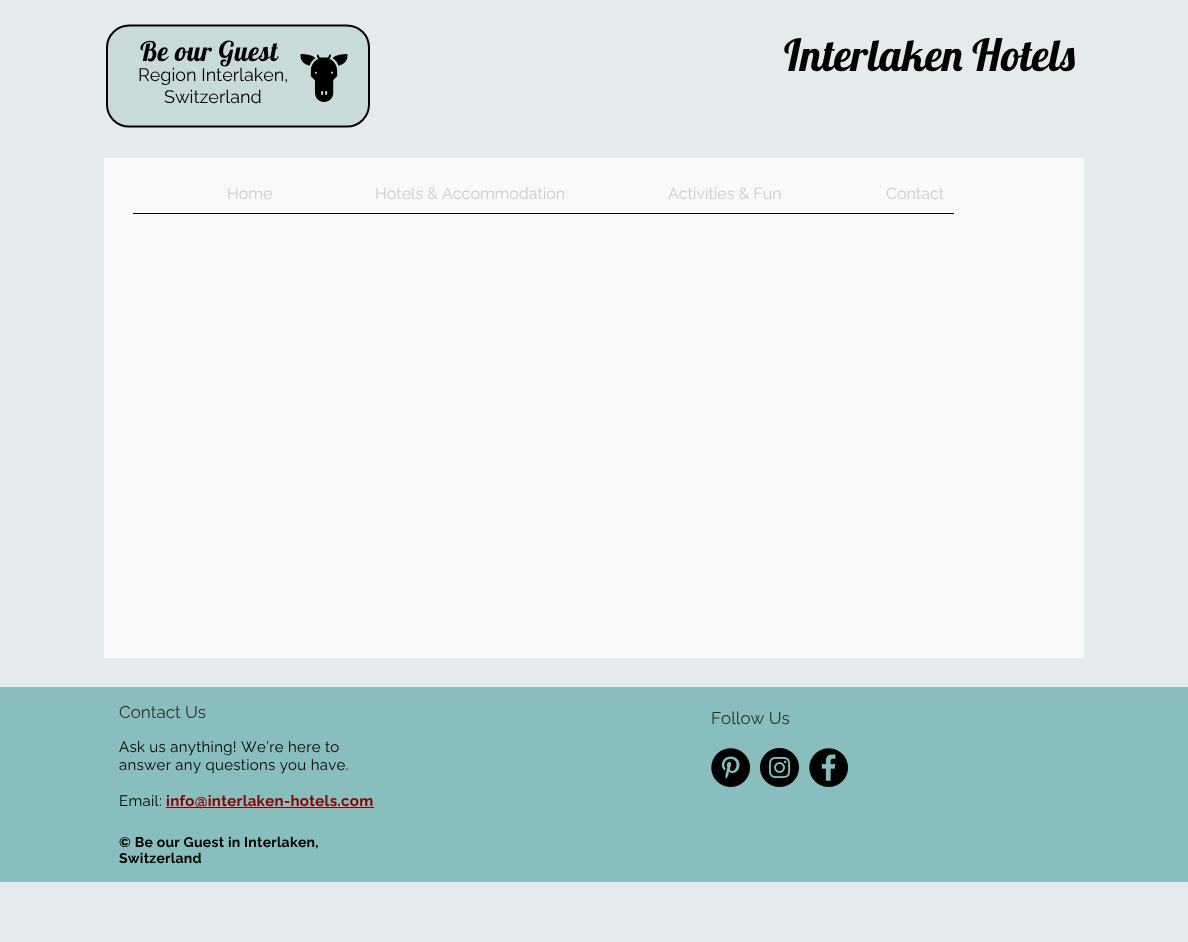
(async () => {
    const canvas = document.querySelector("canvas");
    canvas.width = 1188;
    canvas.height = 942;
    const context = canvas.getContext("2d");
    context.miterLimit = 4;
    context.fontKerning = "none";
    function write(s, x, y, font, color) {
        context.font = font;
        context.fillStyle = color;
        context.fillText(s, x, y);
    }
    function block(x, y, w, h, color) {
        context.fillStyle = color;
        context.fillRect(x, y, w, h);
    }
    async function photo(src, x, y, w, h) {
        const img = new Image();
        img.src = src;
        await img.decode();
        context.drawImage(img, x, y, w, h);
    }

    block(0, 0, 1188, 942, "rgb(229, 235, 237)");
    context.fillStyle = "rgb(201, 218, 219)";
    context.beginPath();
    context.moveTo(347, 127);
    context.lineTo(129, 127);
    context.bezierCurveTo(117, 127, 107, 117, 107, 105);
    context.lineTo(107, 47);
    context.bezierCurveTo(107, 35, 117, 25, 129, 25);
    context.lineTo(347, 25);
    context.bezierCurveTo(359, 25, 369, 35, 369, 47);
    context.lineTo(369, 105);
    context.bezierCurveTo(369, 117, 359, 127, 347, 127);
    context.closePath();
    context.fill();
    context.beginPath();
    context.moveTo(347, 126.5);
    context.lineTo(129, 126.5);
    context.bezierCurveTo(117, 126.5, 107, 117, 107, 104.5);
    context.lineTo(107, 47.5);
    context.bezierCurveTo(107, 35.5, 117, 25.5, 129, 25.5);
    context.lineTo(347, 25.5);
    context.bezierCurveTo(359, 25.5, 369, 35, 369, 47.5);
    context.lineTo(369, 104.5);
    context.bezierCurveTo(369, 117, 359, 126.5, 347, 126.5);
    context.closePath();
    context.strokeStyle = "rgb(0, 0, 0)";
    context.lineWidth = 2;
    context.stroke();
    write("Interlaken Hotels", 784, 71, "44px Lobster", "rgb(0, 0, 0)");
    context.letterSpacing = "0.5px";
    write("Be our Guest", 140, 61, "27px Lobster", "rgb(0, 0, 0)");
    await photo("media/1.png", 300, 54, 48, 48);
    context.letterSpacing = "0px";
    write("Region Interlaken,", 138, 81, "18px Raleway", "rgb(0, 0, 0)");
    write("Switzerland", 164, 103, "18px Raleway", "rgb(0, 0, 0)");
    block(104, 158, 980, 500, "rgb(248, 249, 250)");
    write("Home", 227, 199, "16px Raleway", "rgb(204, 204, 204)");
    write("Hotels & Accommodation", 375, 199, "16px Raleway", "rgb(204, 204, 204)");
    write("Activities & Fun", 668, 199, "16px Raleway", "rgb(204, 204, 204)");
    write("Contact", 886, 199, "16px Raleway", "rgb(204, 204, 204)");
    block(133, 213, 821, 1, "rgb(0, 0, 0)");
    block(0, 687, 1188, 195, "rgb(136, 190, 189)");
    write("Contact Us", 119, 718, "17px Raleway", "rgb(47, 46, 46)");
    write("Follow Us", 711, 724, "17px Raleway", "rgb(47, 46, 46)");
    context.letterSpacing = "0.3px";
    write("Ask us anything! We’re", 119, 752, "15px Raleway", "rgb(0, 0, 0)");
    write("here to", 288, 752, "15px Raleway", "rgb(0, 0, 0)");
    write("answer any questions you have.", 119, 770, "15px Raleway", "rgb(0, 0, 0)");
    write("Email:", 119, 806, "15px Raleway", "rgb(0, 0, 0)");
    block(166, 807, 208, 1, "rgb(139, 0, 0)");
    write("info@interlaken-hotels.com", 166, 806, "bold 15px Raleway", "rgb(139, 0, 0)");
    await photo("media/2.png", 711, 748, 39, 39);
    await photo("media/3.png", 760, 748, 39, 39);
    await photo("media/4.png", 809, 748, 39, 39);
    context.letterSpacing = "0.25px";
    write("© Be our Guest in Interlaken,", 119, 847, "bold 14px Raleway", "rgb(0, 0, 0)");
    write("Switzerland", 119, 863, "bold 14px Raleway", "rgb(0, 0, 0)");
})();
